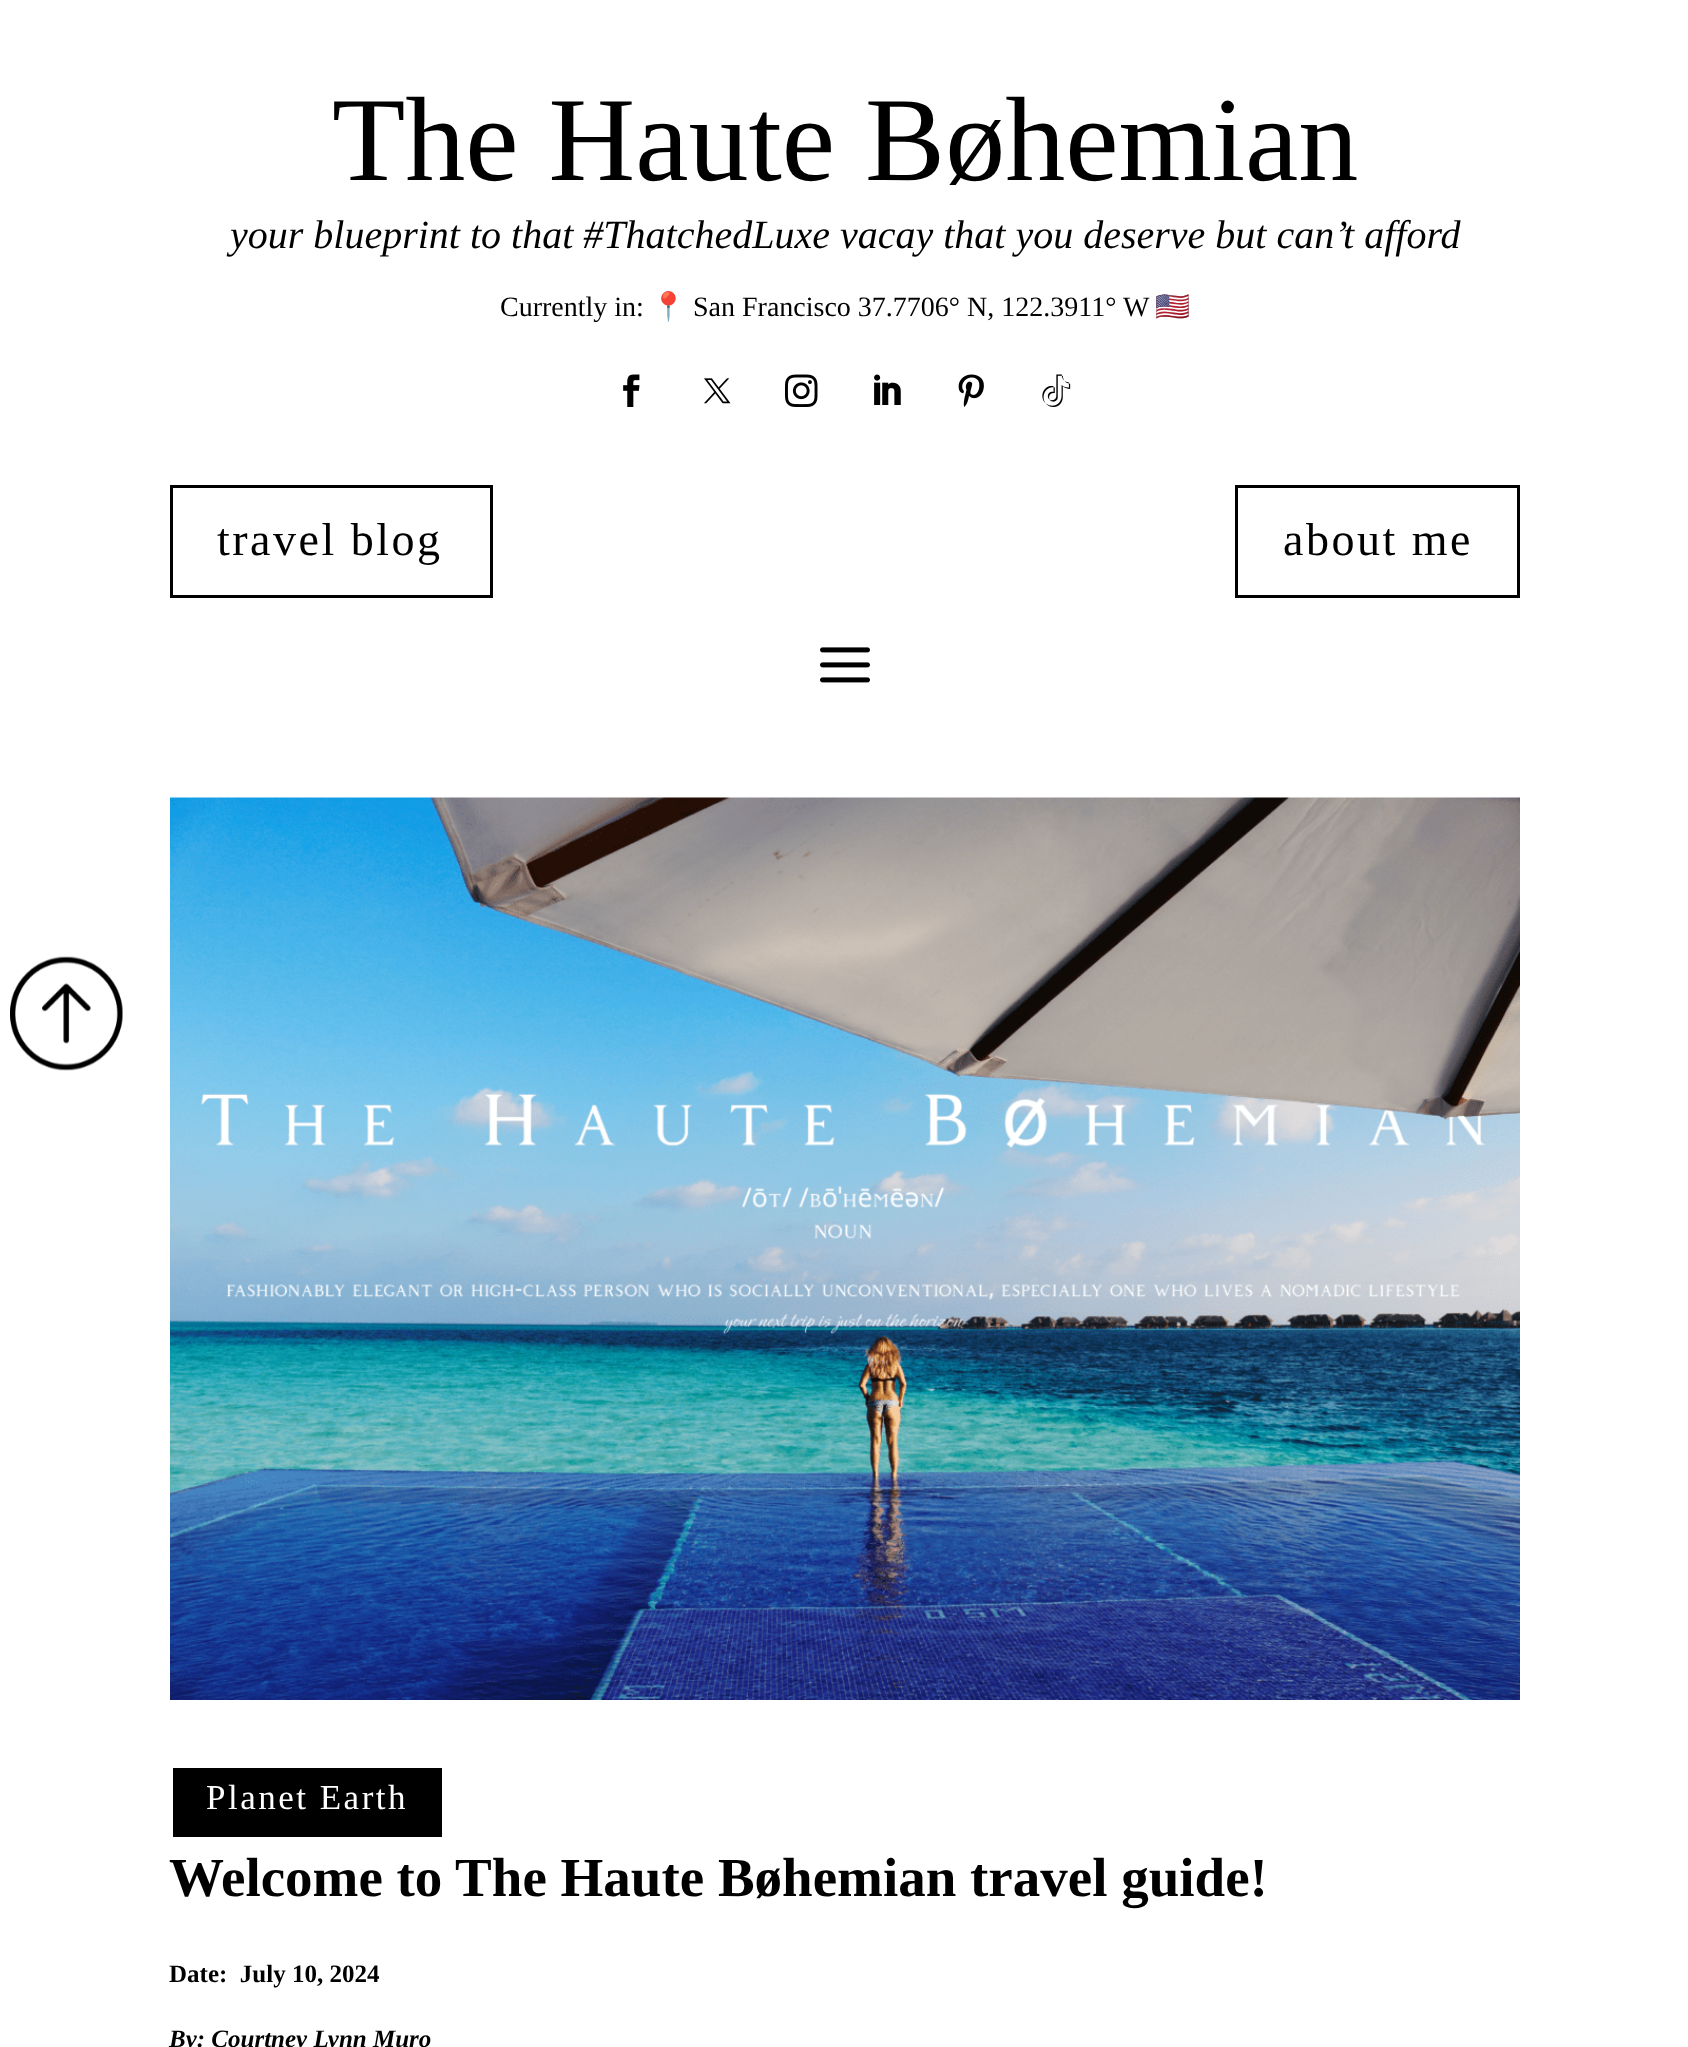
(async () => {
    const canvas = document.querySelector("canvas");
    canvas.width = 1688;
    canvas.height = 2047;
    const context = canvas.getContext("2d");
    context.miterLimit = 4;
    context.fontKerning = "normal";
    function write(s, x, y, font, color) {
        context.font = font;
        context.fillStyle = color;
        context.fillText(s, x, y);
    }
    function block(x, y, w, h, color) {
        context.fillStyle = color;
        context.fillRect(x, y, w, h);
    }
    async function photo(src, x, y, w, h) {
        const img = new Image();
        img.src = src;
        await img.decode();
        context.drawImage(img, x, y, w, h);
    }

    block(0, 0, 1688, 2047, "rgb(255, 255, 255)");
    await photo("media/1.png", 10, 956, 113, 115);
    write("The Haute Bøhemian", 332, 180, "120px Liberation Serif", "rgb(0, 0, 0)");
    write("your blueprint to that #ThatchedLuxe vacay that you deserve but can’t afford", 230, 248, "italic 40px Liberation Serif", "rgb(0, 0, 0)");
    write("Currently in:", 500, 316, "28px Liberation Serif", "rgb(0, 0, 0)");
    write("📍", 651, 316, "28px Noto Color Emoji", "rgb(0, 0, 0)");
    write("San Francisco 37.7706° N, 122.3911° W", 693, 316, "28px Liberation Serif", "rgb(0, 0, 0)");
    write("🇺🇸", 1155, 316, "28px Noto Color Emoji", "rgb(0, 0, 0)");
    await photo("media/2.png", 623, 374, 17, 33);
    await photo("media/3.png", 704, 378, 27, 26);
    await photo("media/4.png", 785, 374, 33, 33);
    await photo("media/5.png", 874, 374, 27, 31);
    await photo("media/6.png", 958, 374, 26, 33);
    await photo("media/7.png", 1042, 374, 29, 33);
    context.strokeStyle = "rgb(0, 0, 0)";
    context.lineWidth = 3;
    context.strokeRect(171.5, 486.5, 320, 110);
    context.letterSpacing = "2.5px";
    write("travel blog", 217, 555, "46px Liberation Serif", "rgb(0, 0, 0)");
    context.strokeRect(1236.5, 486.5, 282, 110);
    write("about me", 1283, 555, "46px Liberation Serif", "rgb(0, 0, 0)");
    await photo("media/8.png", 820, 647, 50, 36);
    await photo("media/9.png", 170, 797, 1350, 903);
    block(173, 1768, 269, 69, "rgb(0, 0, 0)");
    write("Planet Earth", 206, 1809, "35px Liberation Serif", "rgb(255, 255, 255)");
    context.letterSpacing = "0px";
    write("Welcome to The Haute Bøhemian travel guide!", 169, 1896, "bold 55px Liberation Serif", "rgb(0, 0, 0)");
    write("Date:  July 10, 2024", 169, 1982, "bold 25px Liberation Serif", "rgb(0, 0, 0)");
    write("By: Courtney Lynn Muro", 169, 2047, "italic bold 25px Liberation Serif", "rgb(0, 0, 0)");
})();
